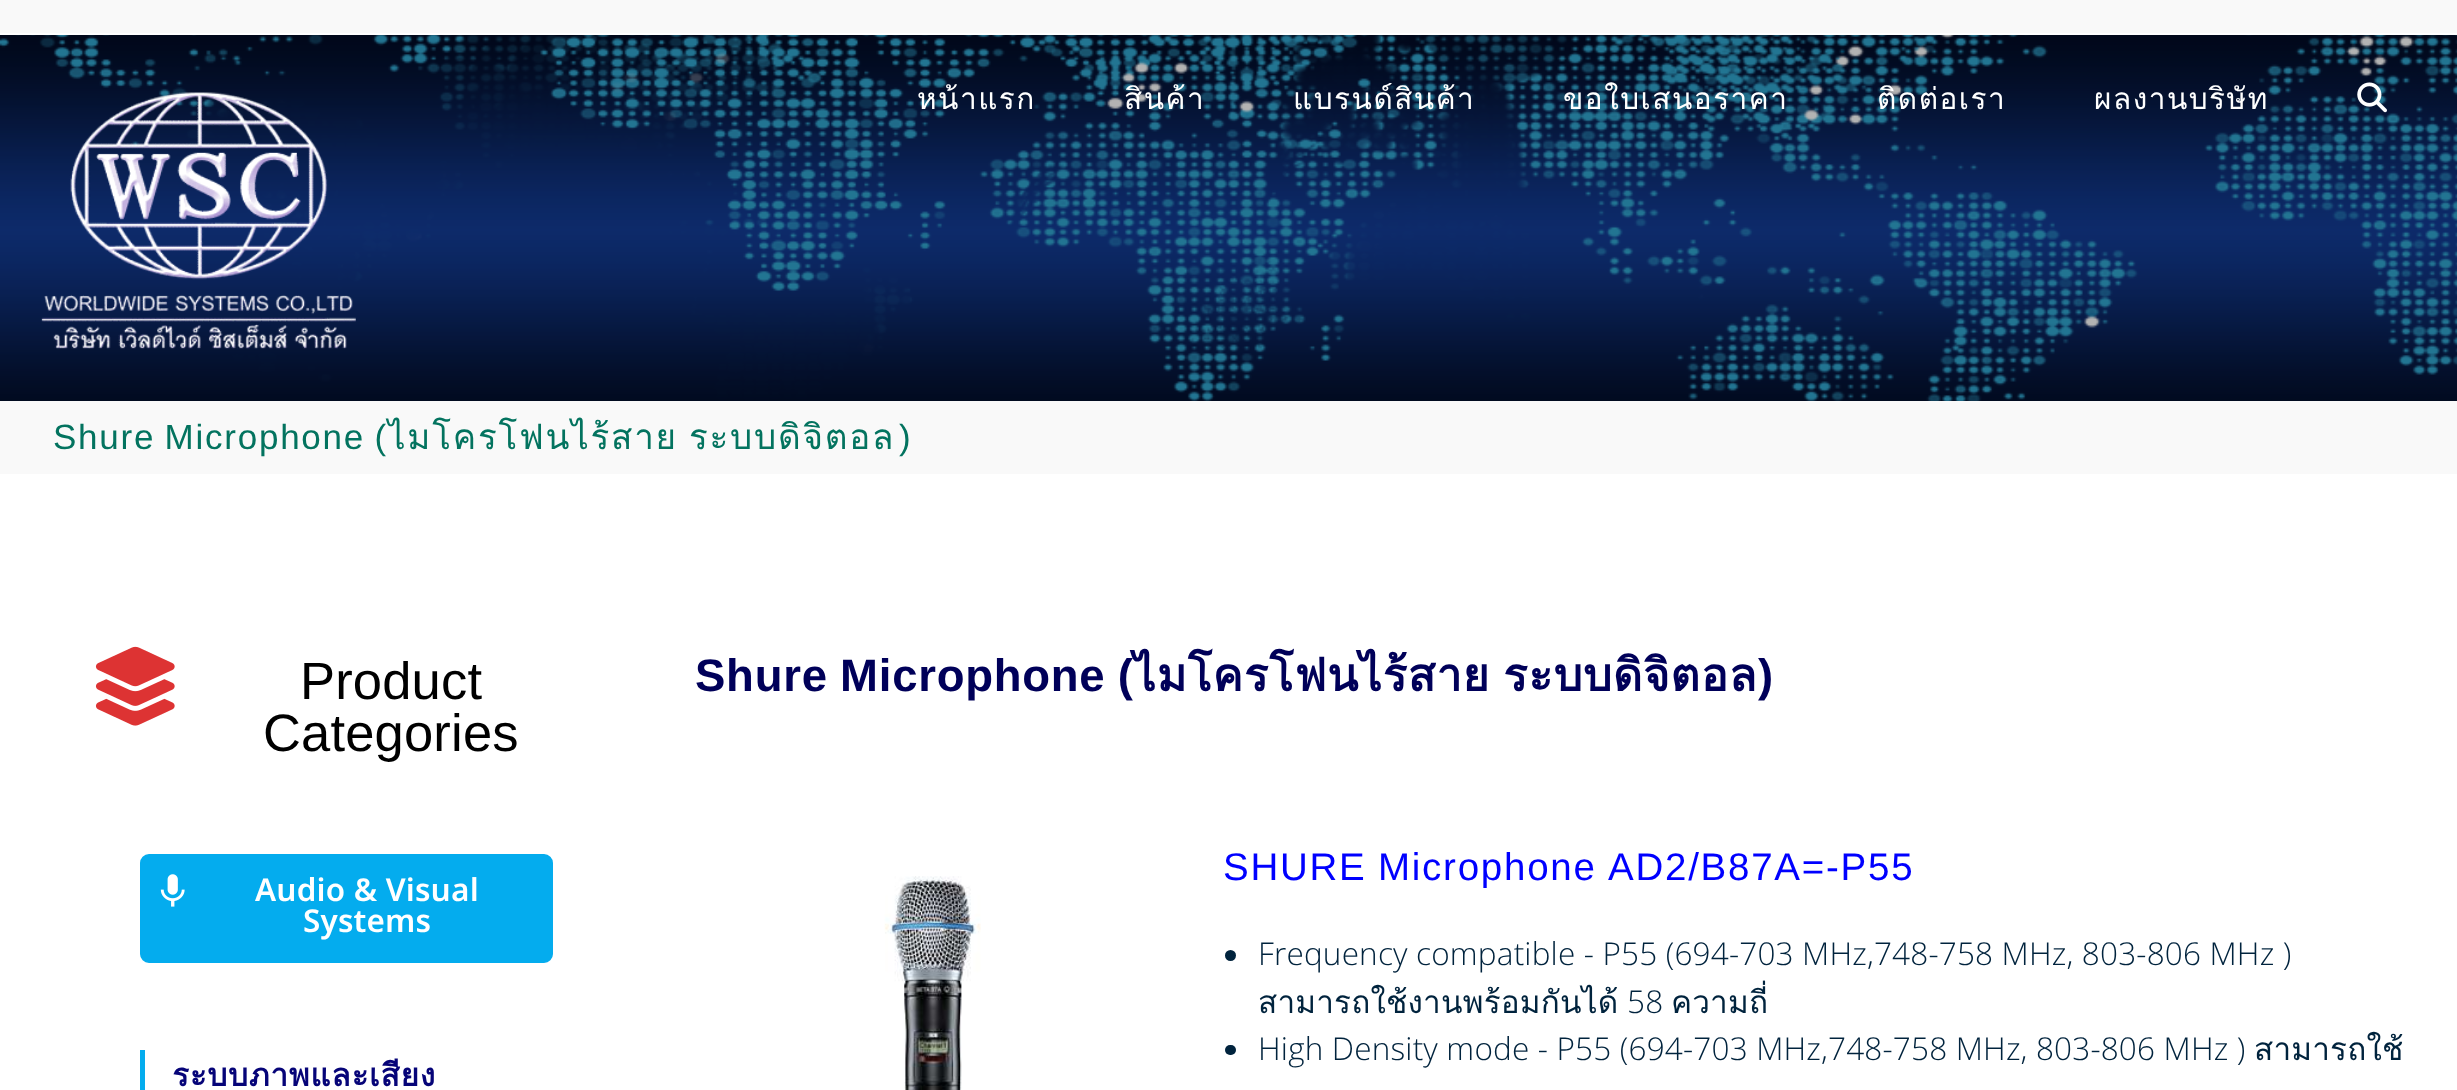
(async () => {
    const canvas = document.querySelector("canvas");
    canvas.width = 2457;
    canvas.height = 1090;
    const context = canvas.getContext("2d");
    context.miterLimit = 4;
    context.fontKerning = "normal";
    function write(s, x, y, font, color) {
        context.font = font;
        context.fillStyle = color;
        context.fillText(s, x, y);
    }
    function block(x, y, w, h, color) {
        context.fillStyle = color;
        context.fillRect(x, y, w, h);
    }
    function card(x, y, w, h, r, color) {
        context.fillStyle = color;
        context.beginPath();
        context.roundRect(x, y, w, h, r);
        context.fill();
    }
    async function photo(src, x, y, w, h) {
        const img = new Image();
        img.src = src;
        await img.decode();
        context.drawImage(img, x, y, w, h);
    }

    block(0, 0, 2457, 1090, "rgb(255, 255, 255)");
    block(0, 0, 2457, 33, "rgb(249, 249, 249)");
    await photo("media/1.png", 0, 35, 2457, 366);
    await photo("media/2.png", 41, 92, 315, 257);
    context.letterSpacing = "1.5px";
    write("หน้าแรก", 917, 109, "29.75px Loma", "rgb(255, 255, 255)");
    write("สินค้า", 1124, 109, "29.75px Loma", "rgb(255, 255, 255)");
    write("แบรนด์สินค้า", 1293, 109, "29.75px Loma", "rgb(255, 255, 255)");
    write("ขอใบเสนอราคา", 1563, 109, "29.75px Loma", "rgb(255, 255, 255)");
    write("ติดต่อเรา", 1877, 109, "29.75px Loma", "rgb(255, 255, 255)");
    write("ผลงานบริษัท", 2094, 109, "29.75px Loma", "rgb(255, 255, 255)");
    await photo("media/3.png", 2357, 82, 30, 31);
    block(0, 401, 2457, 73, "rgb(249, 249, 249)");
    context.letterSpacing = "1.75px";
    context.wordSpacing = "-2px";
    write("Shure Microphone (", 53, 449, "35px Liberation Sans", "rgb(3, 115, 95)");
    context.wordSpacing = "0px";
    write("ไมโครโฟนไร้สาย", 388, 449, "35px Loma", "rgb(3, 115, 95)");
    write("ระบบดิจิตอล", 689, 449, "35px Loma", "rgb(3, 115, 95)");
    write(")", 899, 449, "35px Liberation Sans", "rgb(3, 115, 95)");
    await photo("media/4.png", 95, 646, 80, 80);
    context.letterSpacing = "0.18px";
    write("Product", 300, 699, "52.5px Liberation Sans", "rgb(0, 0, 0)");
    write("Categories", 263, 751, "52.5px Liberation Sans", "rgb(0, 0, 0)");
    context.fillStyle = "rgb(4, 172, 238)";
    context.beginPath();
    context.roundRect(141, 855, 411, 107, 8);
    context.fill();
    context.strokeStyle = "rgb(4, 172, 238)";
    context.lineWidth = 2;
    context.stroke();
    await photo("media/5.png", 160, 874, 25, 33);
    write("Audio & Visual", 255, 901, "600 31.5px Noto Sans Thai", "rgb(255, 255, 255)");
    write("Systems", 303, 932, "600 31.5px Noto Sans Thai", "rgb(255, 255, 255)");
    block(140, 1050, 5, 40, "rgb(4, 172, 238)");
    context.letterSpacing = "0.75px";
    write("ระบบภาพและเสียง", 172, 1086, "bold 31.5px Loma", "rgb(6, 4, 120)");
    context.wordSpacing = "-1px";
    write("Shure Microphone (", 695, 691, "bold 45.5px Liberation Sans", "rgb(0, 0, 89)");
    context.wordSpacing = "0px";
    write("ไมโครโฟนไร้สาย", 1133, 691, "bold 45.5px Loma", "rgb(0, 0, 89)");
    write("ระบบดิจิตอล", 1503, 691, "bold 45.5px Loma", "rgb(0, 0, 89)");
    write(")", 1758, 691, "bold 45.5px Liberation Sans", "rgb(0, 0, 89)");
    await photo("media/6.png", 884, 876, 97, 214);
    context.letterSpacing = "1.75px";
    context.wordSpacing = "-1px";
    write("SHURE Microphone", 1223, 880, "38.5px Liberation Sans", "rgb(0, 0, 255)");
    context.wordSpacing = "0px";
    write("AD2/B87A=-P55", 1608, 880, "38.5px Liberation Sans", "rgb(0, 0, 255)");
    context.fillStyle = "rgb(0, 35, 61)";
    context.beginPath();
    context.arc(1230.5, 955.5, 5.5, 0, Math.PI * 2);
    context.fill();
    context.letterSpacing = "0.18px";
    write("Frequency compatible - P55 (694-703 MHz,748-758 MHz, 803-806 MHz )", 1258, 965, "300 31.5px Open Sans", "rgb(0, 35, 61)");
    write("สามารถใช้งานพร้อมกันได้", 1258, 1013, "31.5px Loma", "rgb(0, 35, 61)");
    write("58", 1627, 1013, "300 31.5px Open Sans", "rgb(0, 35, 61)");
    write("ความถี่", 1671, 1013, "31.5px Loma", "rgb(0, 35, 61)");
    card(1225, 1045, 11, 10, 5, "rgb(0, 35, 61)");
    write("High Density mode - P55 (694-703 MHz,748-758 MHz, 803-806 MHz )", 1258, 1060, "300 31.5px Open Sans", "rgb(0, 35, 61)");
    write("สามารถใช้", 2254, 1060, "31.5px Loma", "rgb(0, 35, 61)");
})();
